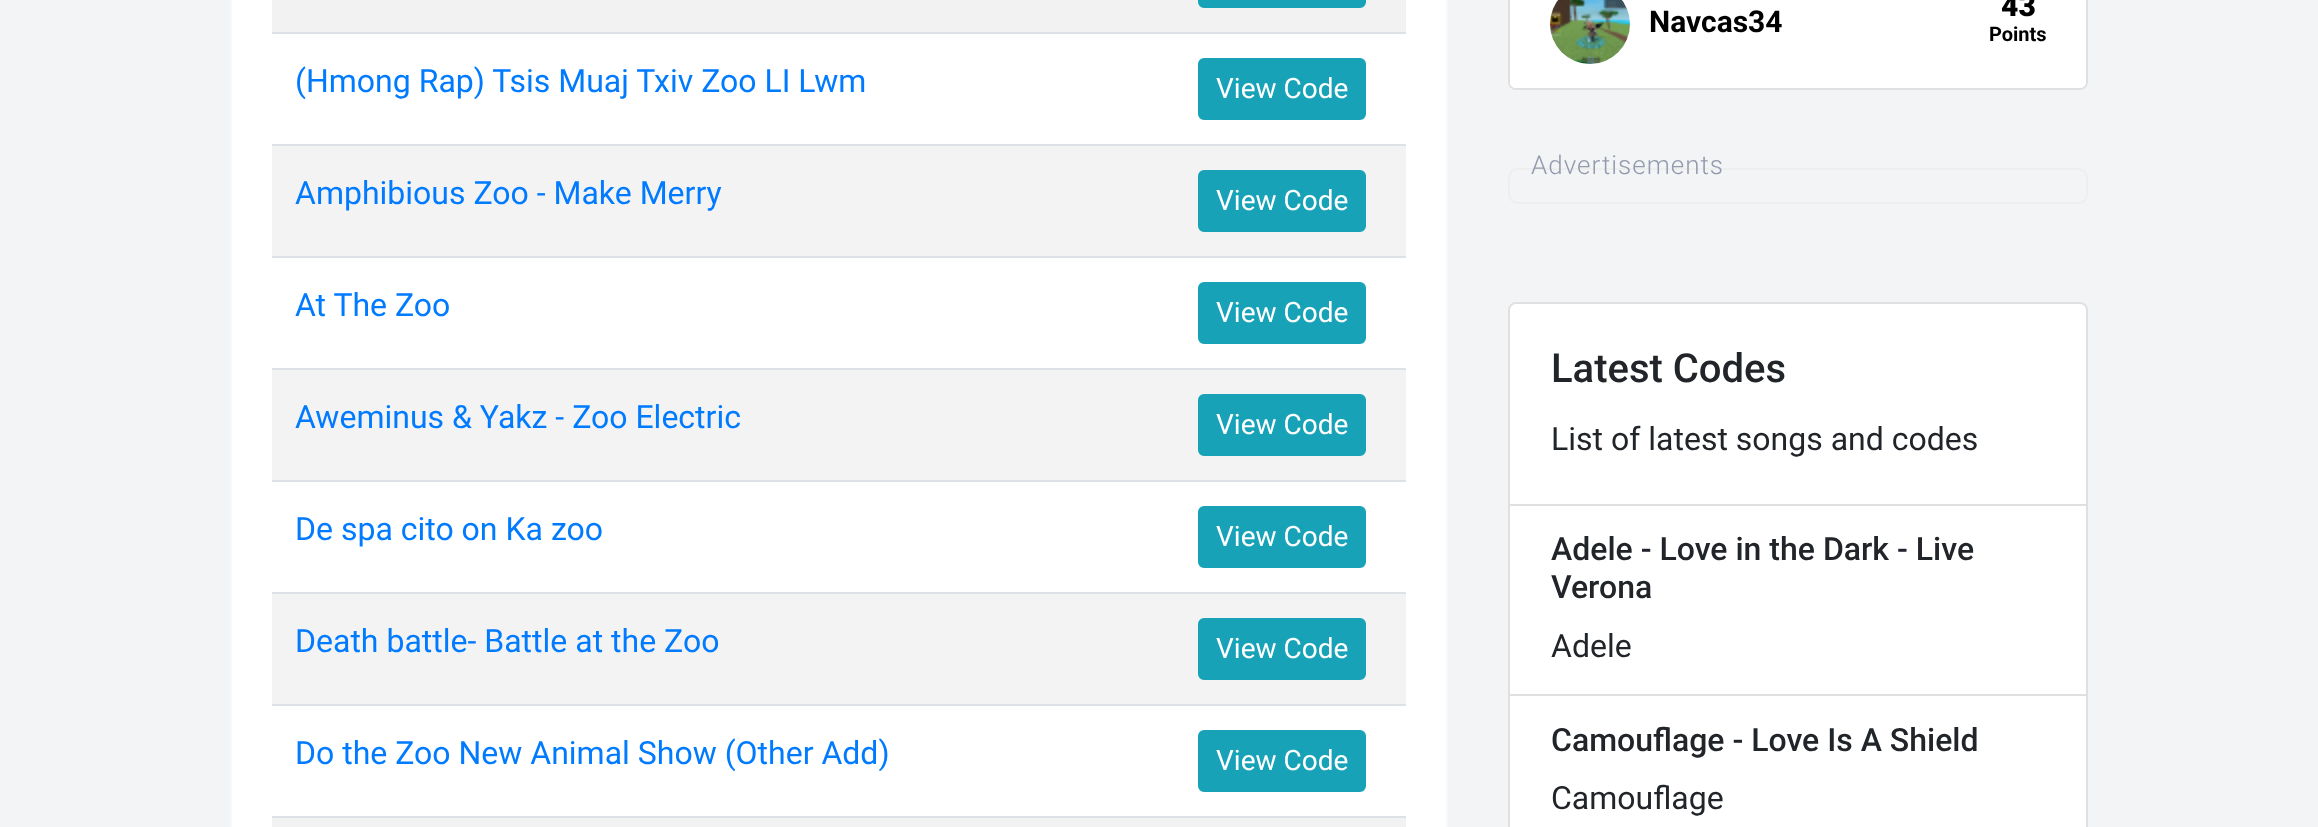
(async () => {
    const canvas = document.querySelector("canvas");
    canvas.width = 2318;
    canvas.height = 827;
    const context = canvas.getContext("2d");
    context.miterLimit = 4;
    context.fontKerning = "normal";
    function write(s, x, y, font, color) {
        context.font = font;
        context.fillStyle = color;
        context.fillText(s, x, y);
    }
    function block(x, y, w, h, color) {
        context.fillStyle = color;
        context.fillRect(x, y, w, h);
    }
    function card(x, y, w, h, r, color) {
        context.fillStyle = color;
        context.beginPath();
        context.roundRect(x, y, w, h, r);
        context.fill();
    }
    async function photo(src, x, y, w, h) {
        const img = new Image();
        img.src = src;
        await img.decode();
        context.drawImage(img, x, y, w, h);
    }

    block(0, 0, 2318, 827, "rgb(242, 244, 245)");
    context.fillStyle = "rgb(255, 255, 255)";
    context.beginPath();
    context.rect(231, -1, 1216, 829);
    context.fill();
    context.strokeStyle = "rgb(248, 249, 250)";
    context.lineWidth = 2;
    context.stroke();
    block(272, 0, 1134, 32, "rgb(242, 242, 242)");
    context.fillStyle = "rgb(23, 162, 184)";
    context.beginPath();
    context.roundRect(1199, -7, 166, 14, 5);
    context.fill();
    context.strokeStyle = "rgb(23, 162, 184)";
    context.stroke();
    block(272, 32, 1134, 2, "rgb(222, 226, 230)");
    write("(Hmong Rap) Tsis Muaj Txiv Zoo LI Lwm", 295, 92, "32px Roboto", "rgb(0, 123, 255)");
    context.fillStyle = "rgb(23, 162, 184)";
    context.beginPath();
    context.roundRect(1199, 59, 166, 60, 5);
    context.fill();
    context.stroke();
    write("View Code", 1216, 98, "28px Roboto", "rgb(255, 255, 255)");
    block(272, 146, 1134, 110, "rgb(243, 243, 243)");
    block(272, 144, 1134, 2, "rgb(222, 226, 230)");
    write("Amphibious Zoo - Make Merry", 295, 204, "32px Roboto", "rgb(0, 123, 255)");
    context.fillStyle = "rgb(23, 162, 184)";
    context.beginPath();
    context.roundRect(1199, 171, 166, 60, 5);
    context.fill();
    context.stroke();
    write("View Code", 1216, 210, "28px Roboto", "rgb(255, 255, 255)");
    block(272, 256, 1134, 2, "rgb(222, 226, 230)");
    write("At The Zoo", 295, 316, "32px Roboto", "rgb(0, 123, 255)");
    context.fillStyle = "rgb(23, 162, 184)";
    context.beginPath();
    context.roundRect(1199, 283, 166, 60, 5);
    context.fill();
    context.stroke();
    write("View Code", 1216, 322, "28px Roboto", "rgb(255, 255, 255)");
    block(272, 370, 1134, 110, "rgb(243, 243, 243)");
    block(272, 368, 1134, 2, "rgb(222, 226, 230)");
    write("Aweminus & Yakz - Zoo Electric", 295, 428, "32px Roboto", "rgb(0, 123, 255)");
    context.fillStyle = "rgb(23, 162, 184)";
    context.beginPath();
    context.roundRect(1199, 395, 166, 60, 5);
    context.fill();
    context.stroke();
    write("View Code", 1216, 434, "28px Roboto", "rgb(255, 255, 255)");
    block(272, 480, 1134, 2, "rgb(222, 226, 230)");
    write("De spa cito on Ka zoo", 295, 540, "32px Roboto", "rgb(0, 123, 255)");
    context.fillStyle = "rgb(23, 162, 184)";
    context.beginPath();
    context.roundRect(1199, 507, 166, 60, 5);
    context.fill();
    context.stroke();
    write("View Code", 1216, 546, "28px Roboto", "rgb(255, 255, 255)");
    block(272, 594, 1134, 110, "rgb(243, 243, 243)");
    block(272, 592, 1134, 2, "rgb(222, 226, 230)");
    write("Death battle- Battle at the Zoo", 295, 652, "32px Roboto", "rgb(0, 123, 255)");
    context.fillStyle = "rgb(23, 162, 184)";
    context.beginPath();
    context.roundRect(1199, 619, 166, 60, 5);
    context.fill();
    context.stroke();
    write("View Code", 1216, 658, "28px Roboto", "rgb(255, 255, 255)");
    block(272, 704, 1134, 2, "rgb(222, 226, 230)");
    write("Do the Zoo New Animal Show (Other Add)", 295, 764, "32px Roboto", "rgb(0, 123, 255)");
    context.fillStyle = "rgb(23, 162, 184)";
    context.beginPath();
    context.roundRect(1199, 731, 166, 60, 5);
    context.fill();
    context.stroke();
    write("View Code", 1216, 770, "28px Roboto", "rgb(255, 255, 255)");
    block(272, 818, 1134, 9, "rgb(242, 242, 242)");
    block(272, 816, 1134, 2, "rgb(222, 226, 230)");
    card(1508, -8, 580, 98, 8, "rgb(255, 255, 255)");
    context.beginPath();
    context.roundRect(1509, -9, 578, 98, 7);
    context.strokeStyle = "rgba(0, 0, 0, 0.12)";
    context.stroke();
    context.beginPath();
    context.moveTo(1510, -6);
    context.lineTo(2086, -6);
    context.lineTo(2086, 82);
    context.bezierCurveTo(2086, 85.5, 2083.5, 88, 2080, 88);
    context.lineTo(1516, 88);
    context.bezierCurveTo(1512.5, 88, 1510, 85.5, 1510, 82);
    context.closePath();
    context.fill();
    await photo("media/1.png", 1550, 0, 80, 64);
    write("Navcas34", 1649, 32, "bold 30px Roboto", "rgb(0, 0, 0)");
    write("43", 2001, 16, "900 30px Roboto", "rgb(0, 0, 0)");
    write("Points", 1989, 41, "bold 20px Roboto", "rgb(0, 0, 0)");
    context.beginPath();
    context.roundRect(1509, 169, 578, 34, 9);
    context.strokeStyle = "rgb(238, 238, 238)";
    context.stroke();
    context.letterSpacing = "1px";
    write("Advertisements", 1531, 174, "300 26px Roboto", "rgb(147, 154, 173)");
    card(1508, 302, 580, 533, 8, "rgb(255, 255, 255)");
    context.beginPath();
    context.roundRect(1509, 303, 578, 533, 7);
    context.strokeStyle = "rgba(0, 0, 0, 0.12)";
    context.stroke();
    context.letterSpacing = "0px";
    write("Latest Codes", 1551, 382, "500 40px Roboto", "rgb(33, 37, 41)");
    write("List of latest songs and codes", 1551, 450, "32px Roboto", "rgb(33, 37, 41)");
    block(1510, 504, 576, 2, "rgb(223, 223, 223)");
    block(1510, 694, 576, 2, "rgb(223, 223, 223)");
    write("Adele - Love in the Dark - Live", 1551, 560, "500 32px Roboto", "rgb(33, 37, 41)");
    write("Verona", 1551, 598, "500 32px Roboto", "rgb(33, 37, 41)");
    write("Adele", 1551, 657, "32px Roboto", "rgb(33, 37, 41)");
    write("Camouflage - Love Is A Shield", 1551, 751, "500 32px Roboto", "rgb(33, 37, 41)");
    write("Camouflage", 1551, 809, "32px Roboto", "rgb(33, 37, 41)");
})();
